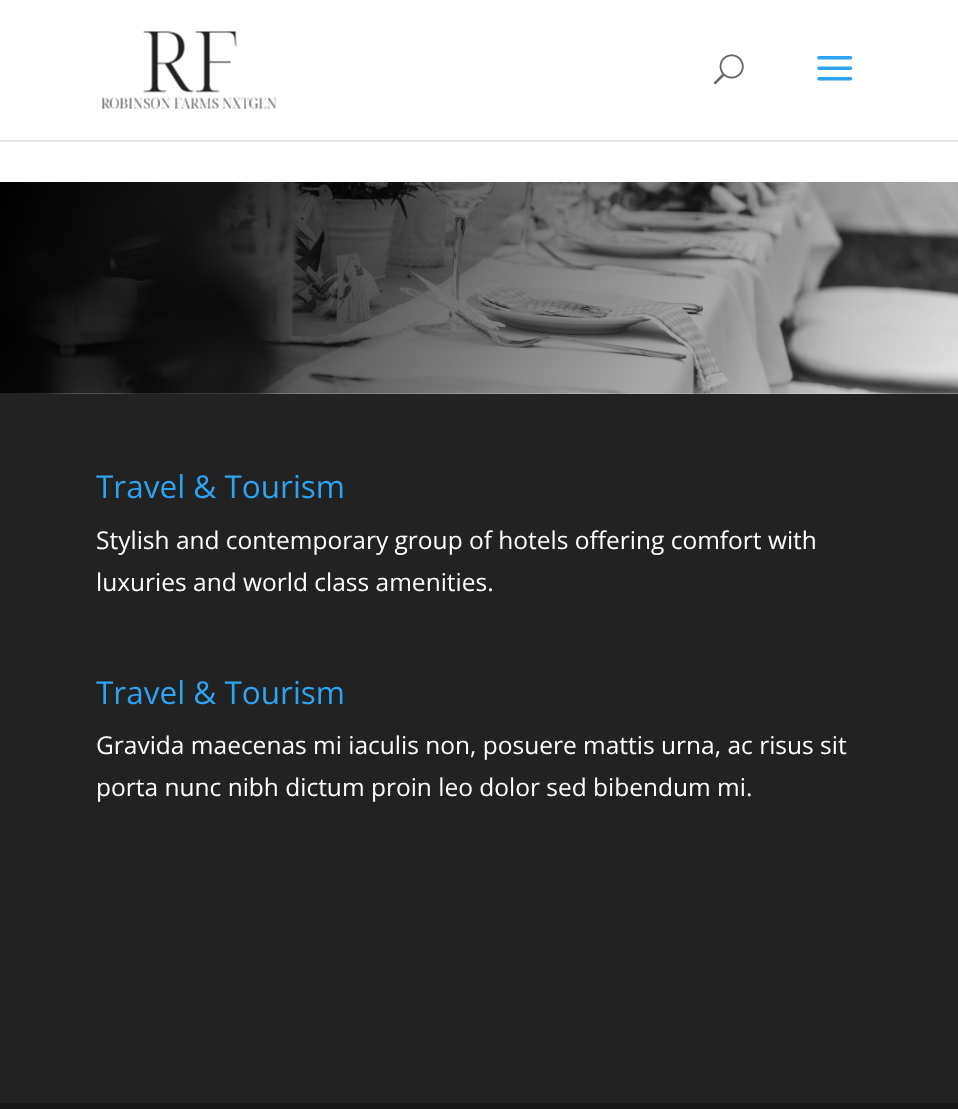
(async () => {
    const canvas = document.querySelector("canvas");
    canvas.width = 958;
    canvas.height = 1109;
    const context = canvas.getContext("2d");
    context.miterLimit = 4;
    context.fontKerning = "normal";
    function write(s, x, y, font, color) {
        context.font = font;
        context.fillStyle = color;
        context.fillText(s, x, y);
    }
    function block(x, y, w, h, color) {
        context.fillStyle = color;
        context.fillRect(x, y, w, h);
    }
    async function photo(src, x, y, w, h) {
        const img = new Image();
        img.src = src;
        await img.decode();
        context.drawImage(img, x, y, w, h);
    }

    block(0, 0, 958, 1109, "rgb(255, 255, 255)");
    block(0, 140, 958, 2, "rgb(230, 230, 230)");
    await photo("media/1.png", 101, 31, 176, 78);
    await photo("media/2.png", 713, 54, 31, 31);
    await photo("media/3.png", 817, 56, 36, 25);
    await photo("media/4.png", 0, 182, 958, 212);
    block(0, 394, 958, 709, "rgb(34, 34, 34)");
    write("Travel & Tourism", 96, 498, "31.5px Open Sans", "rgb(46, 163, 242)");
    write("Stylish and contemporary group of hotels offering comfort with", 96, 549, "24.5px Open Sans", "rgb(255, 255, 255)");
    write("luxuries and world class amenities.", 96, 591, "24.5px Open Sans", "rgb(255, 255, 255)");
    write("Travel & Tourism", 96, 704, "31.5px Open Sans", "rgb(46, 163, 242)");
    write("Gravida maecenas mi iaculis non, posuere mattis urna, ac risus sit", 96, 754, "24.5px Open Sans", "rgb(255, 255, 255)");
    write("porta nunc nibh dictum proin leo dolor sed bibendum mi.", 96, 796, "24.5px Open Sans", "rgb(255, 255, 255)");
    block(0, 1103, 958, 6, "rgb(23, 23, 23)");
})();
